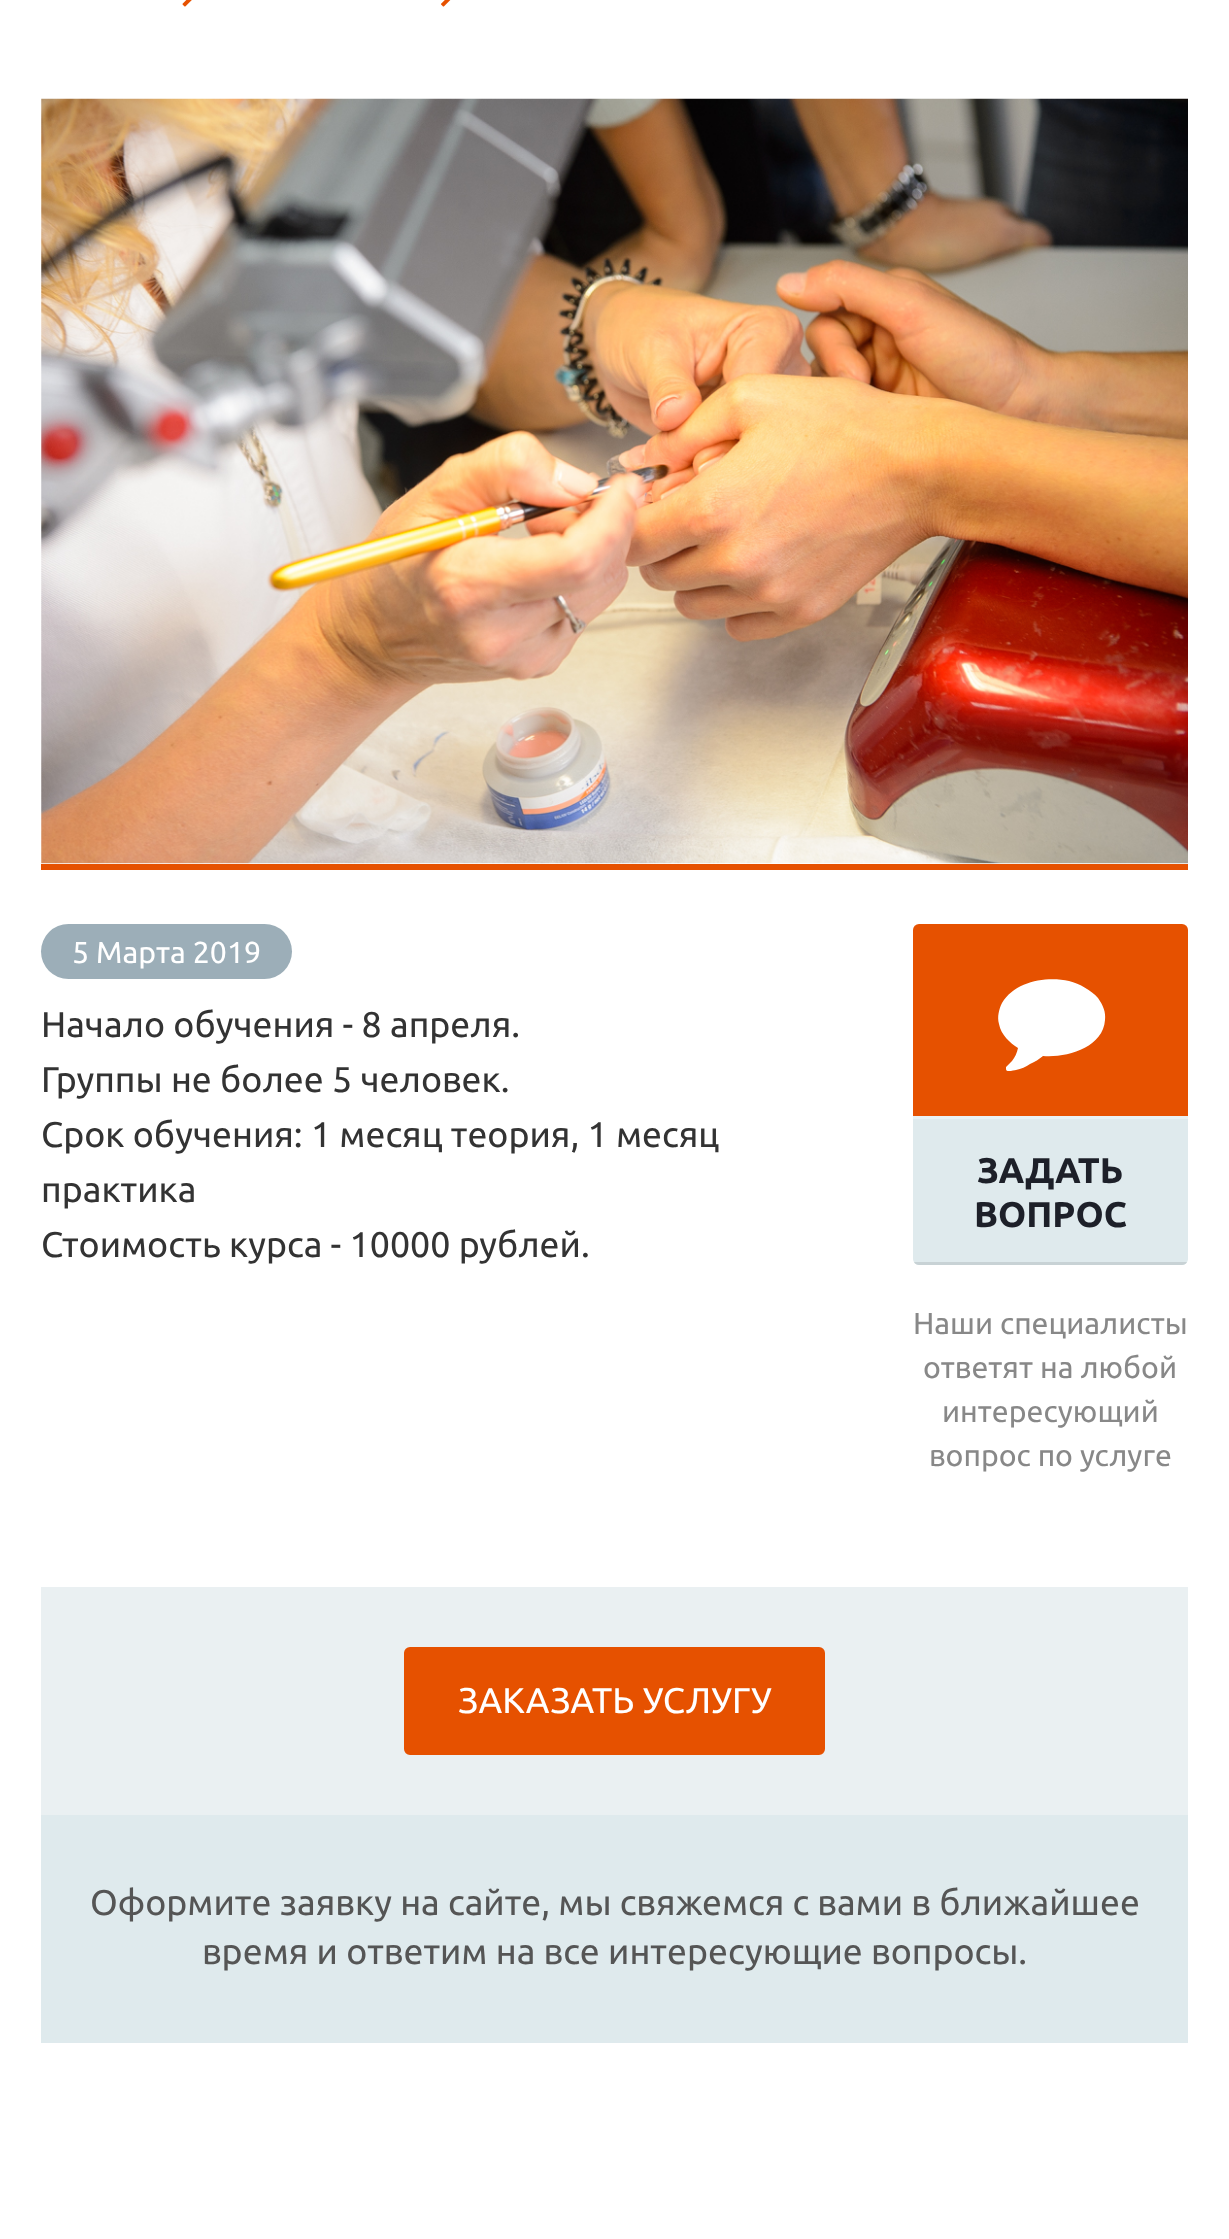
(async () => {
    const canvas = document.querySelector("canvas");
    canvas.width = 1229;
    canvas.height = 2239;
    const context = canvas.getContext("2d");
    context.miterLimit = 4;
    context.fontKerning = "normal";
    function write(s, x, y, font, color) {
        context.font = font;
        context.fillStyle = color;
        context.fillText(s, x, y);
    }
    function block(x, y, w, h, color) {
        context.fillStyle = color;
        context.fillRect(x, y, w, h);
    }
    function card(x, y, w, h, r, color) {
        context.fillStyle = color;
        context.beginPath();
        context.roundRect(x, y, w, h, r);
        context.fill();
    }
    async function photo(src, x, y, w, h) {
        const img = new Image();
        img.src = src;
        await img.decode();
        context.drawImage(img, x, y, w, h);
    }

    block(0, 0, 1229, 2239, "rgb(255, 255, 255)");
    await photo("media/1.png", 182, 0, 10, 7);
    await photo("media/2.png", 441, 0, 10, 7);
    block(41, 864, 1147, 6, "rgb(230, 81, 0)");
    await photo("media/3.png", 41, 98, 1147, 766);
    card(41, 924, 251, 55, 27.5, "rgb(156, 174, 184)");
    write("5 Марта 2019", 72, 963, "30.25px Ubuntu", "rgb(255, 255, 255)");
    write("Начало обучения - 8 апреля.", 41, 1037, "35.75px Ubuntu", "rgb(51, 51, 51)");
    write("Группы не более 5 человек.", 41, 1092, "35.75px Ubuntu", "rgb(51, 51, 51)");
    write("Срок обучения: 1 месяц теория, 1 месяц", 41, 1147, "35.75px Ubuntu", "rgb(51, 51, 51)");
    write("практика", 41, 1202, "35.75px Ubuntu", "rgb(51, 51, 51)");
    write("Стоимость курса - 10000 рублей.", 41, 1257, "35.75px Ubuntu", "rgb(51, 51, 51)");
    context.fillStyle = "rgb(230, 81, 0)";
    context.beginPath();
    context.roundRect(913, 924, 275, 193, [6, 6, 0, 0]);
    context.fill();
    context.fillStyle = "rgb(255, 255, 255)";
    context.beginPath();
    context.moveTo(1098, 998);
    context.bezierCurveTo(1103, 1005, 1106, 1012, 1105, 1020);
    context.bezierCurveTo(1103, 1048, 1066, 1058, 1043, 1056);
    context.bezierCurveTo(1039, 1059, 1035, 1062, 1030, 1064);
    context.bezierCurveTo(1026, 1067, 1021, 1069, 1016, 1070);
    context.bezierCurveTo(1014, 1070, 1006, 1073, 1006, 1069);
    context.lineTo(1006, 1067);
    context.lineTo(1012, 1061);
    context.bezierCurveTo(1015, 1057, 1017, 1053, 1018, 1048);
    context.bezierCurveTo(1010, 1043, 1001, 1035, 999, 1024);
    context.bezierCurveTo(997, 1017, 999, 1009, 1002, 1003);
    context.bezierCurveTo(1015, 981, 1047, 976, 1069, 981);
    context.bezierCurveTo(1080, 984, 1091, 990, 1098, 998);
    context.closePath();
    context.fill();
    context.fillStyle = "rgb(223, 234, 237)";
    context.beginPath();
    context.roundRect(913, 1117, 275, 148, [0, 0, 6, 6]);
    context.fill();
    block(913, 1116, 275, 3, "rgb(234, 241, 243)");
    context.fillStyle = "rgb(200, 210, 213)";
    context.beginPath();
    context.moveTo(1187, 1262);
    context.bezierCurveTo(1186, 1264, 1184, 1265, 1182, 1265);
    context.lineTo(919, 1265);
    context.bezierCurveTo(917, 1265, 915, 1264, 914, 1262);
    context.closePath();
    context.fill();
    write("ЗАДАТЬ", 977, 1183, "bold 35.75px Ubuntu", "rgb(29, 32, 41)");
    write("ВОПРОС", 974, 1227, "bold 35.75px Ubuntu", "rgb(29, 32, 41)");
    write("Наши специалисты", 913, 1334, "30.25px Ubuntu", "rgb(136, 136, 136)");
    write("ответят на любой", 923, 1378, "30.25px Ubuntu", "rgb(136, 136, 136)");
    write("интересующий", 942, 1422, "30.25px Ubuntu", "rgb(136, 136, 136)");
    write("вопрос по услуге", 929, 1466, "30.25px Ubuntu", "rgb(136, 136, 136)");
    block(41, 1587, 1147, 228, "rgb(234, 240, 242)");
    context.fillStyle = "rgb(230, 81, 0)";
    context.beginPath();
    context.roundRect(405.5, 1648.5, 418, 105, 4.5);
    context.fill();
    context.strokeStyle = "rgb(230, 81, 0)";
    context.lineWidth = 3;
    context.stroke();
    write("ЗАКАЗАТЬ УСЛУГУ", 458, 1713, "35.75px Ubuntu", "rgb(255, 255, 255)");
    block(41, 1815, 1147, 228, "rgb(223, 234, 237)");
    write("Оформите заявку на сайте, мы свяжемся с вами в ближайшее", 90, 1915, "35.75px Ubuntu", "rgb(85, 85, 85)");
    write("время и ответим на все интересующие вопросы.", 202, 1964, "35.75px Ubuntu", "rgb(85, 85, 85)");
})();
